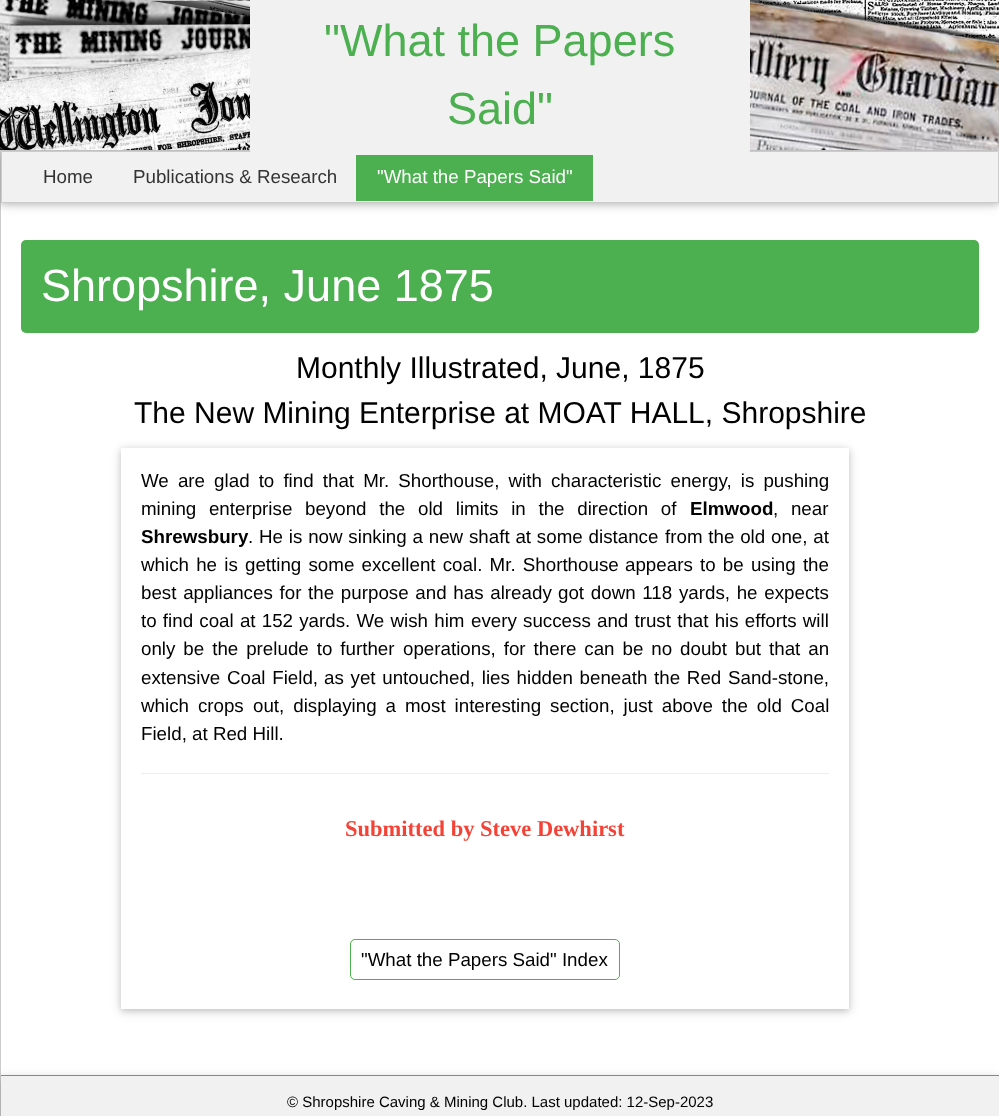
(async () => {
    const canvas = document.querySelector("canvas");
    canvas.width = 999;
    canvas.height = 1116;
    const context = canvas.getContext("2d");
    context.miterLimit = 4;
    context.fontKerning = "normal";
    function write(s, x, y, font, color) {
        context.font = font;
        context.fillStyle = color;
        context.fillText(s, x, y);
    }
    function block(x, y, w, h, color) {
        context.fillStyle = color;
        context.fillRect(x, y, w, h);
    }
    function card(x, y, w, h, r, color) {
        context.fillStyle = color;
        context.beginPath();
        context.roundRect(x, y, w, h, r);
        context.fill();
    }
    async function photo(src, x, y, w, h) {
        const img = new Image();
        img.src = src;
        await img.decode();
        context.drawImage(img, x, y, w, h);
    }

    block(0, 0, 999, 1116, "rgb(255, 255, 255)");
    context.strokeStyle = "rgb(204, 204, 204)";
    context.strokeRect(0.5, 150.5, 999, 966);
    context.fillStyle = "rgba(0, 0, 0, 0.12)";
    context.filter = "blur(6px)";
    context.beginPath();
    context.rect(1, 154, 998, 51);
    context.fill();
    context.filter = "none";
    context.fillStyle = "rgba(0, 0, 0, 0.16)";
    context.filter = "blur(3px)";
    context.beginPath();
    context.rect(1, 154, 998, 51);
    context.fill();
    context.filter = "none";
    await photo("media/1.png", 0, 0, 999, 150);
    context.fillStyle = "rgb(241, 241, 241)";
    context.beginPath();
    context.rect(1.5, 151.5, 997, 51);
    context.fill();
    context.stroke();
    card(250, -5, 500, 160, 5, "rgb(241, 241, 241)");
    write("\"What the Papers", 324, 56, "45px Liberation Sans", "rgb(76, 175, 80)");
    write("Said\"", 447, 124, "45px Liberation Sans", "rgb(76, 175, 80)");
    write("Home", 43, 183, "18.75px Liberation Sans", "rgb(51, 51, 51)");
    write("Publications & Research", 133, 183, "18.75px Liberation Sans", "rgb(51, 51, 51)");
    block(356, 155, 237, 46, "rgb(76, 175, 80)");
    write("\"What the Papers Said\"", 377, 183, "18.75px Liberation Sans", "rgb(255, 255, 255)");
    card(21, 240, 958, 93, 5, "rgb(76, 175, 80)");
    write("Shropshire, June 1875", 41, 301, "45px Liberation Sans", "rgb(255, 255, 255)");
    write("Monthly Illustrated, June, 1875", 296, 378, "30px Liberation Sans", "rgb(0, 0, 0)");
    write("The New Mining Enterprise at MOAT HALL, Shropshire", 134, 423, "30px Liberation Sans", "rgb(0, 0, 0)");
    context.save();
    context.beginPath();
    context.moveTo(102, 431);
    context.lineTo(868, 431);
    context.lineTo(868, 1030);
    context.lineTo(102, 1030);
    context.closePath();
    context.moveTo(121, 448);
    context.lineTo(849, 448);
    context.lineTo(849, 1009);
    context.lineTo(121, 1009);
    context.closePath();
    context.clip("evenodd");
    context.fillStyle = "rgba(0, 0, 0, 0.12)";
    context.filter = "blur(6px)";
    context.beginPath();
    context.rect(121, 450, 728, 561);
    context.fill();
    context.filter = "none";
    context.restore();
    context.save();
    context.beginPath();
    context.moveTo(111, 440);
    context.lineTo(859, 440);
    context.lineTo(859, 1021);
    context.lineTo(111, 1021);
    context.closePath();
    context.moveTo(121, 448);
    context.lineTo(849, 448);
    context.lineTo(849, 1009);
    context.lineTo(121, 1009);
    context.closePath();
    context.clip("evenodd");
    context.fillStyle = "rgba(0, 0, 0, 0.16)";
    context.filter = "blur(3px)";
    context.beginPath();
    context.rect(121, 450, 728, 561);
    context.fill();
    context.filter = "none";
    context.restore();
    context.wordSpacing = "3.9px";
    write("We are glad to find that Mr. Shorthouse, with characteristic energy, is pushing", 141, 487, "18.75px Liberation Sans", "rgb(0, 0, 0)");
    context.wordSpacing = "7.5px";
    write("mining enterprise", 141, 515, "18.75px Liberation Sans", "rgb(0, 0, 0)");
    write("beyond the old limits in the direction of", 305, 515, "18.75px Liberation Sans", "rgb(0, 0, 0)");
    context.wordSpacing = "0px";
    write("Elmwood", 690, 515, "bold 18.75px Liberation Sans", "rgb(0, 0, 0)");
    context.wordSpacing = "7.5px";
    write(", near", 773, 515, "18.75px Liberation Sans", "rgb(0, 0, 0)");
    context.wordSpacing = "0px";
    write("Shrewsbury", 141, 543, "bold 18.75px Liberation Sans", "rgb(0, 0, 0)");
    context.wordSpacing = "0.6px";
    write(". He is now sinking a new shaft at some distance", 248, 543, "18.75px Liberation Sans", "rgb(0, 0, 0)");
    write("from the old one, at", 665, 543, "18.75px Liberation Sans", "rgb(0, 0, 0)");
    context.wordSpacing = "2px";
    write("which he is getting some excellent coal. Mr. Shorthouse", 141, 571, "18.75px Liberation Sans", "rgb(0, 0, 0)");
    write("appears to be using the", 625, 571, "18.75px Liberation Sans", "rgb(0, 0, 0)");
    context.wordSpacing = "1.5px";
    write("best appliances for the purpose and has already", 141, 599, "18.75px Liberation Sans", "rgb(0, 0, 0)");
    write("got down 118 yards, he expects", 558, 599, "18.75px Liberation Sans", "rgb(0, 0, 0)");
    context.wordSpacing = "1px";
    write("to find coal at 152 yards. We wish him", 141, 627, "18.75px Liberation Sans", "rgb(0, 0, 0)");
    write("every success and trust that his efforts will", 471, 627, "18.75px Liberation Sans", "rgb(0, 0, 0)");
    context.wordSpacing = "2.75px";
    write("only be the prelude to further", 141, 655, "18.75px Liberation Sans", "rgb(0, 0, 0)");
    write("operations, for there can be no doubt but that an", 403, 655, "18.75px Liberation Sans", "rgb(0, 0, 0)");
    context.wordSpacing = "1.5px";
    write("extensive Coal Field,", 141, 684, "18.75px Liberation Sans", "rgb(0, 0, 0)");
    write("as yet untouched, lies hidden beneath the Red Sand-stone,", 324, 684, "18.75px Liberation Sans", "rgb(0, 0, 0)");
    context.wordSpacing = "3.75px";
    write("which crops", 141, 712, "18.75px Liberation Sans", "rgb(0, 0, 0)");
    write("out, displaying a most interesting section, just above the old Coal", 253, 712, "18.75px Liberation Sans", "rgb(0, 0, 0)");
    context.wordSpacing = "0px";
    write("Field, at Red Hill.", 141, 740, "18.75px Liberation Sans", "rgb(0, 0, 0)");
    block(141, 773, 688, 1, "rgb(238, 238, 238)");
    write("Submitted by Steve Dewhirst", 345, 836, "bold 22.5px Liberation Serif", "rgb(244, 67, 54)");
    context.beginPath();
    context.roundRect(350.5, 939.5, 269, 40, 4.5);
    context.strokeStyle = "rgb(76, 175, 80)";
    context.stroke();
    write("\"What the Papers Said\" Index", 361, 966, "18.75px Liberation Sans", "rgb(0, 0, 0)");
    context.fillStyle = "rgba(0, 0, 0, 0.12)";
    context.filter = "blur(6px)";
    context.beginPath();
    context.rect(1, 1078, 998, 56);
    context.fill();
    context.filter = "none";
    context.fillStyle = "rgba(0, 0, 0, 0.16)";
    context.filter = "blur(3px)";
    context.beginPath();
    context.rect(1, 1078, 998, 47);
    context.fill();
    context.filter = "none";
    block(1, 1076, 998, 40, "rgb(241, 241, 241)");
    block(1, 1075, 998, 1, "rgb(76, 175, 80)");
    write("© Shropshire Caving & Mining Club. Last updated: 12-Sep-2023", 287, 1107, "15px Liberation Sans", "rgb(0, 0, 0)");
})();
